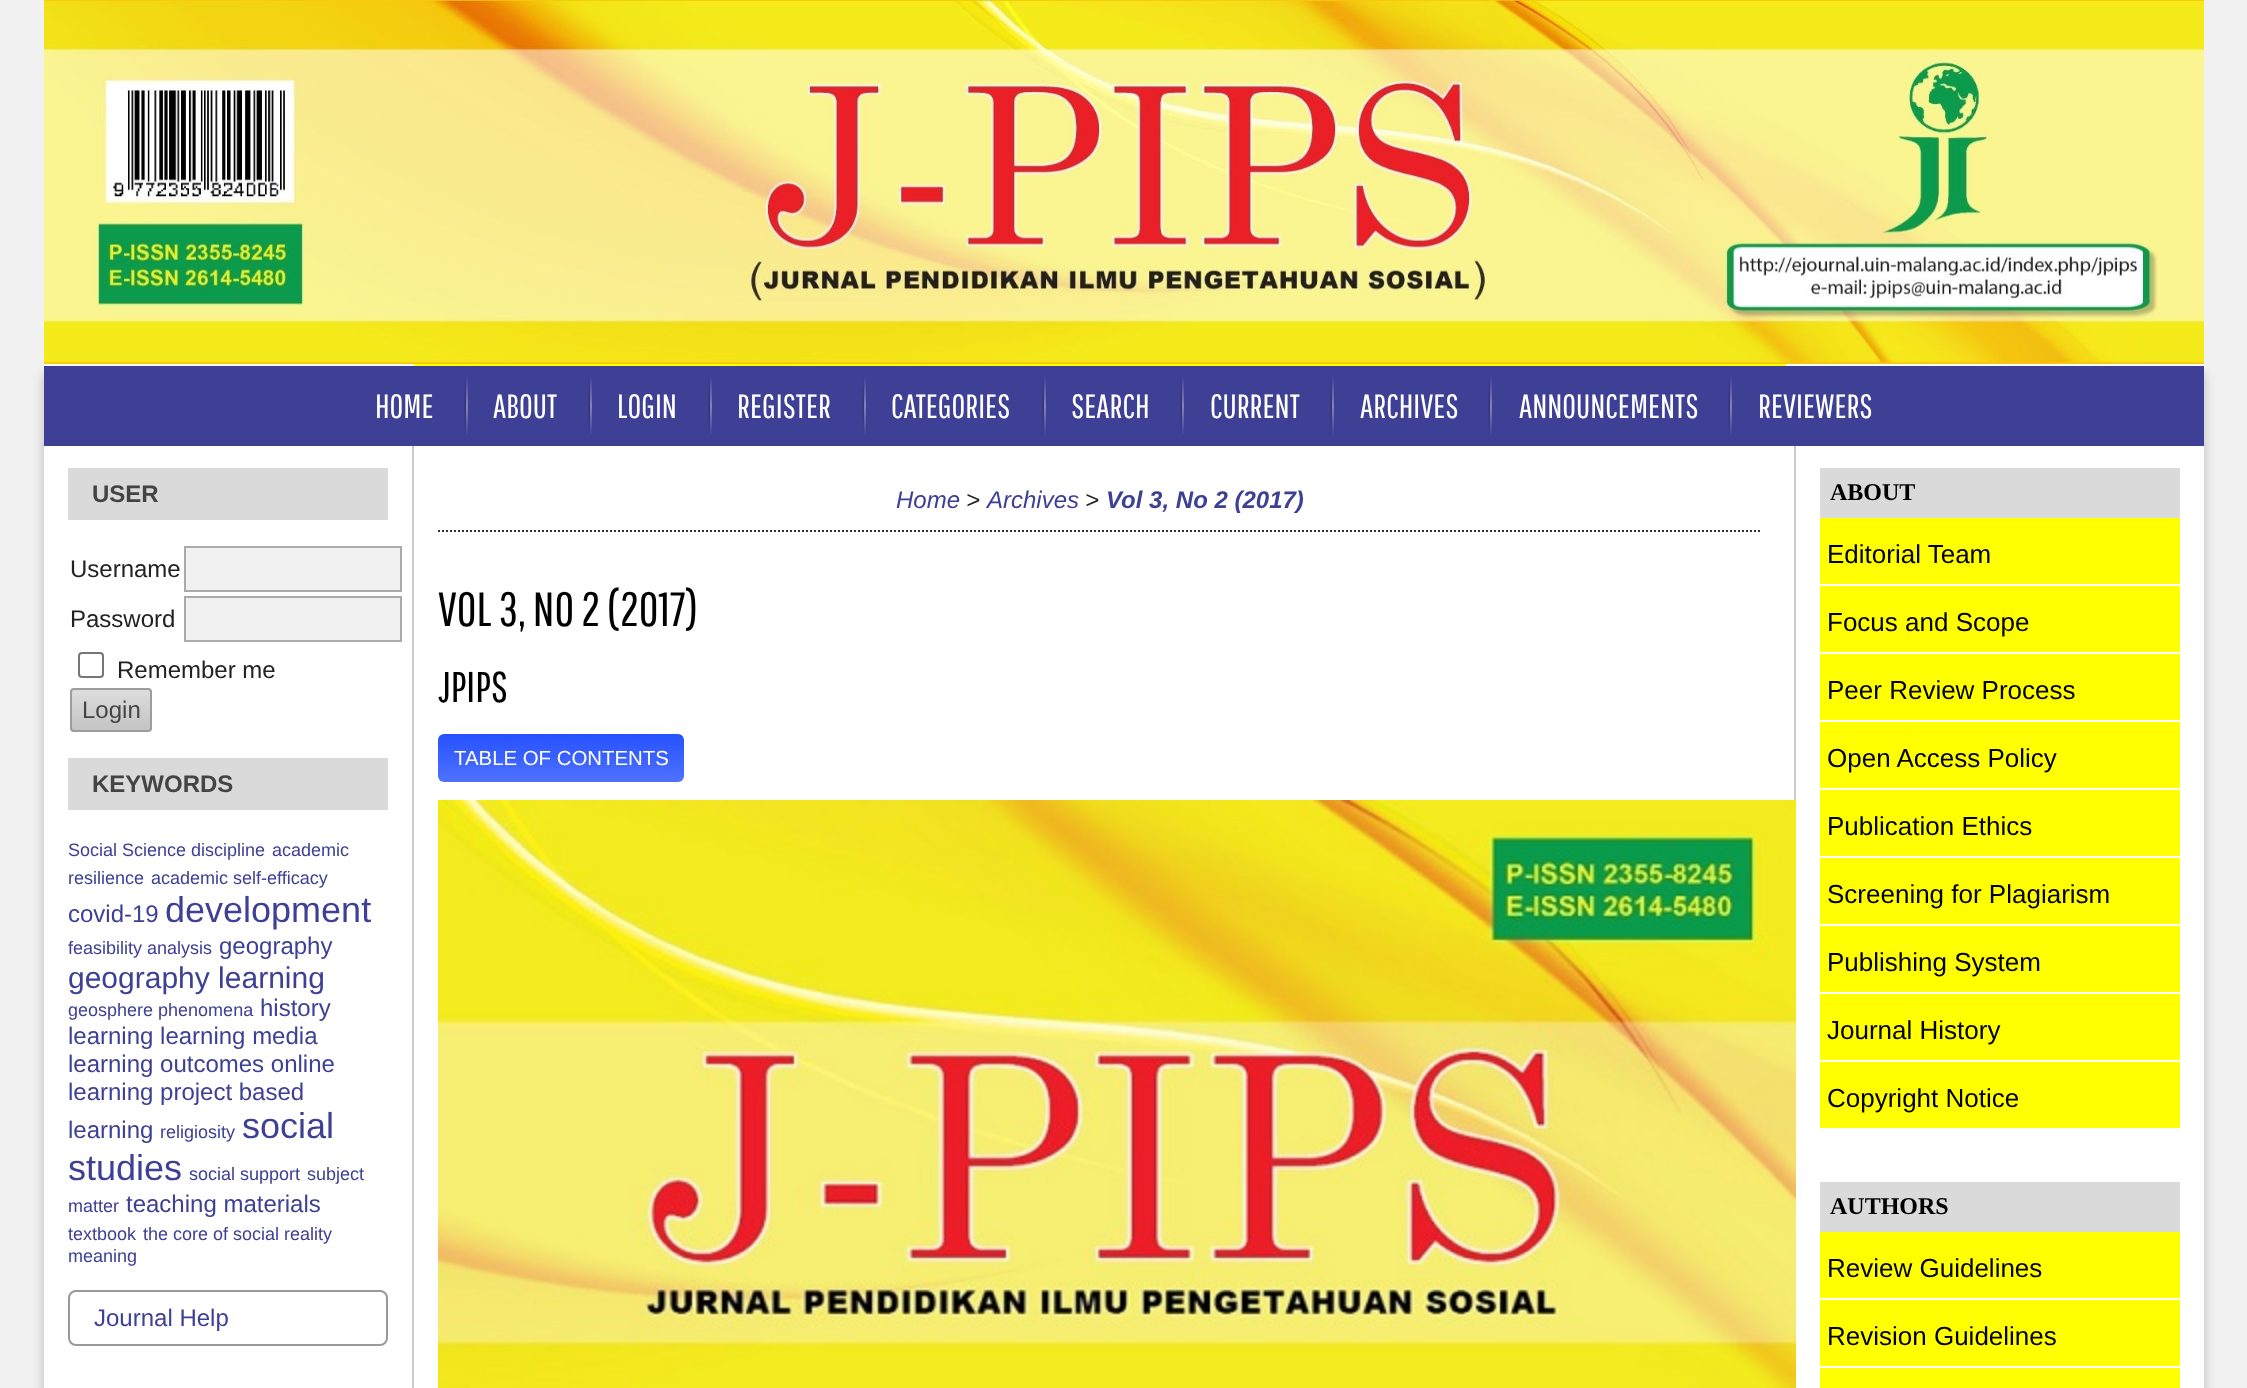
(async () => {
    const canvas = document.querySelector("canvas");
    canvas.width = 2247;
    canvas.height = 1388;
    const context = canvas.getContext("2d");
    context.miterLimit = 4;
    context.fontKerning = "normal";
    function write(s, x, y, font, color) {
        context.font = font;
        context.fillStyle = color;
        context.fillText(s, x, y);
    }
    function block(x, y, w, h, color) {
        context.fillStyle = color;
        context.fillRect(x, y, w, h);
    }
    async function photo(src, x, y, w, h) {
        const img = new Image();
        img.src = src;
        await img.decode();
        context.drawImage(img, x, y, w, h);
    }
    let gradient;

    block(0, 0, 2247, 1388, "rgb(241, 241, 241)");
    await photo("media/1.png", 44, 0, 2160, 364);
    context.fillStyle = "rgb(187, 187, 187)";
    context.filter = "blur(6px)";
    context.beginPath();
    context.rect(44, 374, 2160, 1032);
    context.fill();
    context.filter = "none";
    block(44, 364, 2160, 1024, "rgb(255, 255, 255)");
    block(414, 364, 1372, 2, "rgb(255, 255, 0)");
    block(412, 444, 2, 944, "rgb(204, 204, 204)");
    block(1794, 444, 2, 356, "rgb(204, 204, 204)");
    block(44, 366, 2160, 80, "rgb(62, 64, 149)");
    write("HOME", 375, 418, "33.5px Pathway Gothic One", "rgb(255, 255, 255)");
    gradient = context.createLinearGradient(465, 376, 465, 436);
    gradient.addColorStop(0, "rgb(62, 64, 149)");
    gradient.addColorStop(0.5, "rgb(53, 54, 127)");
    gradient.addColorStop(1, "rgb(62, 64, 149)");
    context.fillStyle = gradient;
    context.fillRect(464, 376, 2, 60);
    gradient = context.createLinearGradient(467, 376, 467, 436);
    gradient.addColorStop(0, "rgb(62, 64, 149)");
    gradient.addColorStop(0.5, "rgb(130, 131, 186)");
    gradient.addColorStop(1, "rgb(62, 64, 149)");
    context.fillStyle = gradient;
    context.fillRect(466, 376, 2, 60);
    write("ABOUT", 493, 418, "33.5px Pathway Gothic One", "rgb(255, 255, 255)");
    gradient = context.createLinearGradient(589, 376, 589, 436);
    gradient.addColorStop(0, "rgb(62, 64, 149)");
    gradient.addColorStop(0.5, "rgb(53, 54, 127)");
    gradient.addColorStop(1, "rgb(62, 64, 149)");
    context.fillStyle = gradient;
    context.fillRect(588, 376, 2, 60);
    gradient = context.createLinearGradient(591, 376, 591, 436);
    gradient.addColorStop(0, "rgb(62, 64, 149)");
    gradient.addColorStop(0.5, "rgb(130, 131, 186)");
    gradient.addColorStop(1, "rgb(62, 64, 149)");
    context.fillStyle = gradient;
    context.fillRect(590, 376, 2, 60);
    write("LOGIN", 617, 418, "33.5px Pathway Gothic One", "rgb(255, 255, 255)");
    gradient = context.createLinearGradient(709, 376, 709, 436);
    gradient.addColorStop(0, "rgb(62, 64, 149)");
    gradient.addColorStop(0.5, "rgb(53, 54, 127)");
    gradient.addColorStop(1, "rgb(62, 64, 149)");
    context.fillStyle = gradient;
    context.fillRect(708, 376, 2, 60);
    gradient = context.createLinearGradient(711, 376, 711, 436);
    gradient.addColorStop(0, "rgb(62, 64, 149)");
    gradient.addColorStop(0.5, "rgb(130, 131, 186)");
    gradient.addColorStop(1, "rgb(62, 64, 149)");
    context.fillStyle = gradient;
    context.fillRect(710, 376, 2, 60);
    write("REGISTER", 737, 418, "33.5px Pathway Gothic One", "rgb(255, 255, 255)");
    gradient = context.createLinearGradient(863, 376, 863, 436);
    gradient.addColorStop(0, "rgb(62, 64, 149)");
    gradient.addColorStop(0.5, "rgb(53, 54, 127)");
    gradient.addColorStop(1, "rgb(62, 64, 149)");
    context.fillStyle = gradient;
    context.fillRect(862, 376, 2, 60);
    gradient = context.createLinearGradient(865, 376, 865, 436);
    gradient.addColorStop(0, "rgb(62, 64, 149)");
    gradient.addColorStop(0.5, "rgb(130, 131, 186)");
    gradient.addColorStop(1, "rgb(62, 64, 149)");
    context.fillStyle = gradient;
    context.fillRect(864, 376, 2, 60);
    write("CATEGORIES", 891, 418, "33.5px Pathway Gothic One", "rgb(255, 255, 255)");
    gradient = context.createLinearGradient(1043, 376, 1043, 436);
    gradient.addColorStop(0, "rgb(62, 64, 149)");
    gradient.addColorStop(0.5, "rgb(53, 54, 127)");
    gradient.addColorStop(1, "rgb(62, 64, 149)");
    context.fillStyle = gradient;
    context.fillRect(1042, 376, 2, 60);
    gradient = context.createLinearGradient(1045, 376, 1045, 436);
    gradient.addColorStop(0, "rgb(62, 64, 149)");
    gradient.addColorStop(0.5, "rgb(130, 131, 186)");
    gradient.addColorStop(1, "rgb(62, 64, 149)");
    context.fillStyle = gradient;
    context.fillRect(1044, 376, 2, 60);
    write("SEARCH", 1071, 418, "33.5px Pathway Gothic One", "rgb(255, 255, 255)");
    gradient = context.createLinearGradient(1181, 376, 1181, 436);
    gradient.addColorStop(0, "rgb(62, 64, 149)");
    gradient.addColorStop(0.5, "rgb(53, 54, 127)");
    gradient.addColorStop(1, "rgb(62, 64, 149)");
    context.fillStyle = gradient;
    context.fillRect(1180, 376, 2, 60);
    gradient = context.createLinearGradient(1183, 376, 1183, 436);
    gradient.addColorStop(0, "rgb(62, 64, 149)");
    gradient.addColorStop(0.5, "rgb(130, 131, 186)");
    gradient.addColorStop(1, "rgb(62, 64, 149)");
    context.fillStyle = gradient;
    context.fillRect(1182, 376, 2, 60);
    write("CURRENT", 1210, 418, "33.5px Pathway Gothic One", "rgb(255, 255, 255)");
    gradient = context.createLinearGradient(1331, 376, 1331, 436);
    gradient.addColorStop(0, "rgb(62, 64, 149)");
    gradient.addColorStop(0.5, "rgb(53, 54, 127)");
    gradient.addColorStop(1, "rgb(62, 64, 149)");
    context.fillStyle = gradient;
    context.fillRect(1330, 376, 2, 60);
    gradient = context.createLinearGradient(1333, 376, 1333, 436);
    gradient.addColorStop(0, "rgb(62, 64, 149)");
    gradient.addColorStop(0.5, "rgb(130, 131, 186)");
    gradient.addColorStop(1, "rgb(62, 64, 149)");
    context.fillStyle = gradient;
    context.fillRect(1332, 376, 2, 60);
    write("ARCHIVES", 1360, 418, "33.5px Pathway Gothic One", "rgb(255, 255, 255)");
    gradient = context.createLinearGradient(1489, 376, 1489, 436);
    gradient.addColorStop(0, "rgb(62, 64, 149)");
    gradient.addColorStop(0.5, "rgb(53, 54, 127)");
    gradient.addColorStop(1, "rgb(62, 64, 149)");
    context.fillStyle = gradient;
    context.fillRect(1488, 376, 2, 60);
    gradient = context.createLinearGradient(1491, 376, 1491, 436);
    gradient.addColorStop(0, "rgb(62, 64, 149)");
    gradient.addColorStop(0.5, "rgb(130, 131, 186)");
    gradient.addColorStop(1, "rgb(62, 64, 149)");
    context.fillStyle = gradient;
    context.fillRect(1490, 376, 2, 60);
    write("ANNOUNCEMENTS", 1519, 418, "33.5px Pathway Gothic One", "rgb(255, 255, 255)");
    gradient = context.createLinearGradient(1729, 376, 1729, 436);
    gradient.addColorStop(0, "rgb(62, 64, 149)");
    gradient.addColorStop(0.5, "rgb(53, 54, 127)");
    gradient.addColorStop(1, "rgb(62, 64, 149)");
    context.fillStyle = gradient;
    context.fillRect(1728, 376, 2, 60);
    gradient = context.createLinearGradient(1731, 376, 1731, 436);
    gradient.addColorStop(0, "rgb(62, 64, 149)");
    gradient.addColorStop(0.5, "rgb(130, 131, 186)");
    gradient.addColorStop(1, "rgb(62, 64, 149)");
    context.fillStyle = gradient;
    context.fillRect(1730, 376, 2, 60);
    write("REVIEWERS", 1758, 418, "33.5px Pathway Gothic One", "rgb(255, 255, 255)");
    context.beginPath();
    context.moveTo(438, 531);
    context.lineTo(1762, 531);
    context.strokeStyle = "rgb(51, 51, 51)";
    context.lineWidth = 2;
    context.setLineDash([2, 2]);
    context.stroke();
    write("Home", 896, 508, "italic 24px Liberation Sans", "rgb(62, 64, 149)");
    write(">", 966, 508, "italic 24px Liberation Sans", "rgb(34, 34, 34)");
    write("Archives", 987, 508, "italic 24px Liberation Sans", "rgb(62, 64, 149)");
    write(">", 1085, 508, "italic 24px Liberation Sans", "rgb(34, 34, 34)");
    write("Vol 3, No 2 (2017)", 1106, 508, "italic bold 24px Liberation Sans", "rgb(62, 64, 149)");
    write("VOL 3, NO 2 (2017)", 438, 626, "48px Pathway Gothic One", "rgb(0, 0, 0)");
    write("JPIPS", 438, 702, "43px Pathway Gothic One", "rgb(0, 0, 0)");
    gradient = context.createLinearGradient(561, 734, 561, 782);
    gradient.addColorStop(0, "rgb(38, 81, 255)");
    gradient.addColorStop(1, "rgb(79, 114, 255)");
    context.fillStyle = gradient;
    context.beginPath();
    context.roundRect(438, 734, 246, 48, 6);
    context.fill();
    write("TABLE OF CONTENTS", 454, 765, "20.4px Liberation Sans", "rgb(255, 255, 255)");
    await photo("media/2.png", 438, 800, 1358, 588);
    block(68, 468, 320, 52, "rgb(218, 218, 218)");
    write("USER", 92, 502, "bold 24px Liberation Sans", "rgb(68, 68, 68)");
    write("Username", 70, 577, "24px Liberation Sans", "rgb(34, 34, 34)");
    context.fillStyle = "rgb(241, 241, 241)";
    context.beginPath();
    context.rect(185, 547, 216, 44);
    context.fill();
    context.strokeStyle = "rgb(170, 170, 170)";
    context.setLineDash([]);
    context.stroke();
    write("Password", 70, 627, "24px Liberation Sans", "rgb(34, 34, 34)");
    context.fillStyle = "rgb(241, 241, 241)";
    context.beginPath();
    context.rect(185, 597, 216, 44);
    context.fill();
    context.stroke();
    context.beginPath();
    context.roundRect(79, 653, 24, 24, 3);
    context.strokeStyle = "rgb(118, 118, 118)";
    context.stroke();
    write("Remember me", 117, 678, "24px Liberation Sans", "rgb(34, 34, 34)");
    context.save();
    context.beginPath();
    context.roundRect(70, 688, 82, 44, 4);
    context.clip();
    gradient = context.createLinearGradient(111, 690, 111, 730);
    gradient.addColorStop(0, "rgb(221, 221, 221)");
    gradient.addColorStop(1, "rgb(196, 196, 196)");
    context.fillStyle = gradient;
    context.fillRect(70, 690, 82, 40);
    context.restore();
    context.beginPath();
    context.roundRect(71, 689, 80, 42, 3);
    context.strokeStyle = "rgb(157, 157, 157)";
    context.stroke();
    write("Login", 82, 718, "24px Liberation Sans", "rgb(68, 68, 68)");
    block(68, 758, 320, 52, "rgb(218, 218, 218)");
    write("KEYWORDS", 92, 792, "bold 24px Liberation Sans", "rgb(68, 68, 68)");
    write("Social Science discipline", 68, 856, "18px Liberation Sans", "rgb(62, 64, 149)");
    write("academic", 272, 856, "18px Liberation Sans", "rgb(62, 64, 149)");
    write("resilience", 68, 884, "18px Liberation Sans", "rgb(62, 64, 149)");
    write("academic self-efficacy", 151, 884, "18px Liberation Sans", "rgb(62, 64, 149)");
    write("covid-19", 68, 922, "24px Liberation Sans", "rgb(62, 64, 149)");
    write("development", 165, 922, "36px Liberation Sans", "rgb(62, 64, 149)");
    write("feasibility analysis", 68, 954, "18px Liberation Sans", "rgb(62, 64, 149)");
    write("geography", 219, 954, "24px Liberation Sans", "rgb(62, 64, 149)");
    write("geography learning", 68, 988, "30px Liberation Sans", "rgb(62, 64, 149)");
    write("geosphere phenomena", 68, 1016, "18px Liberation Sans", "rgb(62, 64, 149)");
    write("history", 260, 1016, "24px Liberation Sans", "rgb(62, 64, 149)");
    write("learning learning media", 68, 1044, "24px Liberation Sans", "rgb(62, 64, 149)");
    write("learning outcomes online", 68, 1072, "24px Liberation Sans", "rgb(62, 64, 149)");
    write("learning project based", 68, 1100, "24px Liberation Sans", "rgb(62, 64, 149)");
    write("learning", 68, 1138, "24px Liberation Sans", "rgb(62, 64, 149)");
    write("religiosity", 160, 1138, "18px Liberation Sans", "rgb(62, 64, 149)");
    write("social", 242, 1138, "36px Liberation Sans", "rgb(62, 64, 149)");
    write("studies", 68, 1180, "36px Liberation Sans", "rgb(62, 64, 149)");
    write("social support", 189, 1180, "18px Liberation Sans", "rgb(62, 64, 149)");
    write("subject", 307, 1180, "18px Liberation Sans", "rgb(62, 64, 149)");
    write("matter", 68, 1212, "18px Liberation Sans", "rgb(62, 64, 149)");
    write("teaching materials", 126, 1212, "24px Liberation Sans", "rgb(62, 64, 149)");
    write("textbook", 68, 1240, "18px Liberation Sans", "rgb(62, 64, 149)");
    write("the core of social reality", 143, 1240, "18px Liberation Sans", "rgb(62, 64, 149)");
    write("meaning", 68, 1262, "18px Liberation Sans", "rgb(62, 64, 149)");
    context.beginPath();
    context.roundRect(69, 1291, 318, 54, 7);
    context.strokeStyle = "rgb(153, 153, 153)";
    context.stroke();
    write("Journal Help", 94, 1326, "24px Liberation Sans", "rgb(62, 64, 149)");
    block(1820, 468, 360, 50, "rgb(218, 218, 218)");
    write("ABOUT", 1830, 500, "bold 24px Liberation Serif", "rgb(0, 0, 0)");
    block(1820, 518, 360, 66, "rgb(255, 255, 0)");
    write("Editorial Team", 1827, 563, "26px Liberation Sans", "rgb(0, 0, 0)");
    block(1820, 586, 360, 66, "rgb(255, 255, 0)");
    write("Focus and Scope", 1827, 631, "26px Liberation Sans", "rgb(0, 0, 0)");
    block(1820, 654, 360, 66, "rgb(255, 255, 0)");
    write("Peer Review Process", 1827, 699, "26px Liberation Sans", "rgb(0, 0, 0)");
    block(1820, 722, 360, 66, "rgb(255, 255, 0)");
    write("Open Access Policy", 1827, 767, "26px Liberation Sans", "rgb(0, 0, 0)");
    block(1820, 790, 360, 66, "rgb(255, 255, 0)");
    write("Publication Ethics", 1827, 835, "26px Liberation Sans", "rgb(0, 0, 0)");
    block(1820, 858, 360, 66, "rgb(255, 255, 0)");
    write("Screening for Plagiarism", 1827, 903, "26px Liberation Sans", "rgb(0, 0, 0)");
    block(1820, 926, 360, 66, "rgb(255, 255, 0)");
    write("Publishing System", 1827, 971, "26px Liberation Sans", "rgb(0, 0, 0)");
    block(1820, 994, 360, 66, "rgb(255, 255, 0)");
    write("Journal History", 1827, 1039, "26px Liberation Sans", "rgb(0, 0, 0)");
    block(1820, 1062, 360, 66, "rgb(255, 255, 0)");
    write("Copyright Notice", 1827, 1107, "26px Liberation Sans", "rgb(0, 0, 0)");
    block(1820, 1182, 360, 50, "rgb(218, 218, 218)");
    write("AUTHORS", 1830, 1214, "bold 24px Liberation Serif", "rgb(0, 0, 0)");
    block(1820, 1232, 360, 66, "rgb(255, 255, 0)");
    write("Review Guidelines", 1827, 1277, "26px Liberation Sans", "rgb(0, 0, 0)");
    block(1820, 1300, 360, 66, "rgb(255, 255, 0)");
    write("Revision Guidelines", 1827, 1345, "26px Liberation Sans", "rgb(0, 0, 0)");
    block(1820, 1368, 360, 20, "rgb(255, 255, 0)");
})();
